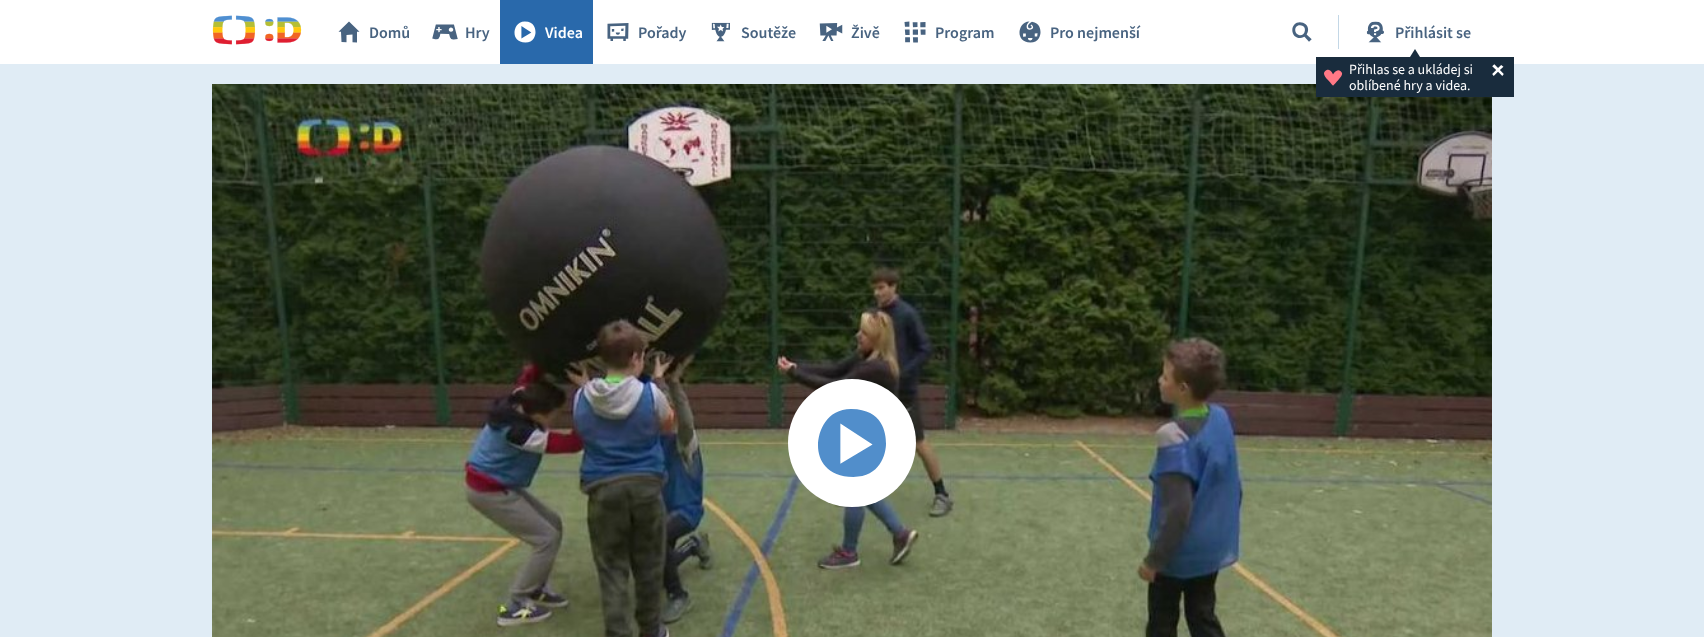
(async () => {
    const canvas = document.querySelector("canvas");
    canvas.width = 1704;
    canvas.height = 637;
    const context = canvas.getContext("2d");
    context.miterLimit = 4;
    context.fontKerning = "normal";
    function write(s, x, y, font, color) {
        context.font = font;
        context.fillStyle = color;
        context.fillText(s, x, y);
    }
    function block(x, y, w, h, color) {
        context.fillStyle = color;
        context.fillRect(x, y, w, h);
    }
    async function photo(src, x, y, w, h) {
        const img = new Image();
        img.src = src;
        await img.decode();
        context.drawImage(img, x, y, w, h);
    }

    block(0, 0, 1704, 637, "rgb(224, 236, 245)");
    block(0, 0, 1704, 64, "rgb(255, 255, 255)");
    await photo("media/1.png", 212, 15, 90, 30);
    await photo("media/2.png", 338, 21, 22, 22);
    write("Domů", 369, 38, "600 16px Source Sans Pro", "rgb(72, 99, 128)");
    await photo("media/3.png", 432, 24, 26, 16);
    write("Hry", 465, 38, "600 16px Source Sans Pro", "rgb(72, 99, 128)");
    block(500, 0, 93, 64, "rgb(41, 105, 171)");
    await photo("media/4.png", 514, 21, 22, 22);
    write("Videa", 545, 38, "600 16px Source Sans Pro", "rgb(255, 255, 255)");
    await photo("media/5.png", 607, 23, 22, 18);
    write("Pořady", 638, 38, "600 16px Source Sans Pro", "rgb(72, 99, 128)");
    await photo("media/6.png", 711, 22, 19, 20);
    write("Soutěže", 741, 38, "600 16px Source Sans Pro", "rgb(72, 99, 128)");
    await photo("media/7.png", 819, 23, 24, 18);
    write("Živě", 851, 38, "600 16px Source Sans Pro", "rgb(72, 99, 128)");
    await photo("media/8.png", 904, 21, 22, 22);
    write("Program", 935, 38, "600 16px Source Sans Pro", "rgb(72, 99, 128)");
    await photo("media/9.png", 1019, 21, 22, 22);
    write("Pro nejmenší", 1050, 38, "600 16px Source Sans Pro", "rgb(72, 99, 128)");
    await photo("media/10.png", 1292, 22, 20, 20);
    block(1338, 15, 1, 34, "rgb(195, 215, 230)");
    await photo("media/11.png", 1366, 21, 18, 22);
    write("Přihlásit se", 1395, 38, "600 16px Source Sans Pro", "rgb(72, 99, 128)");
    await photo("media/14.png", 212, 84, 1280, 553);
    block(1316, 57, 198, 40, "rgb(25, 44, 61)");
    context.beginPath();
    context.moveTo(1420, 57);
    context.lineTo(1410, 57);
    context.lineTo(1415, 49);
    context.closePath();
    context.fill();
    await photo("media/12.png", 1324, 69, 19, 17);
    write("Přihlas se a ukládej si", 1349, 74, "14px Source Sans Pro", "rgb(255, 255, 255)");
    write("oblíbené hry a videa.", 1349, 90, "14px Source Sans Pro", "rgb(255, 255, 255)");
    await photo("media/13.png", 1492, 64, 12, 12);
    await photo("media/15.png", 788, 379, 128, 128);
})();
